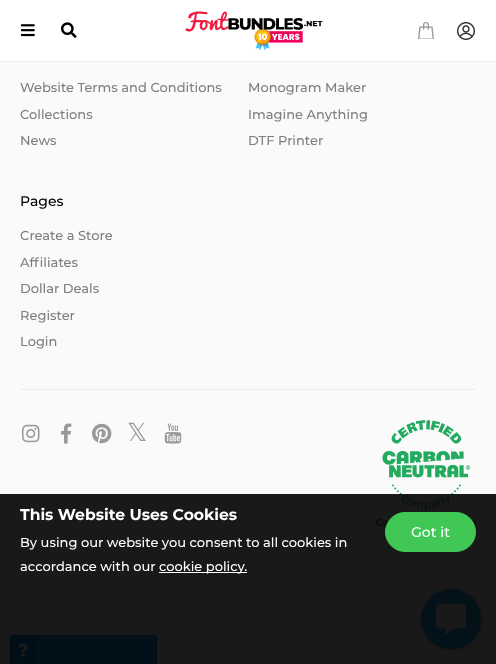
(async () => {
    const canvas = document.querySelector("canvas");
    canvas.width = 496;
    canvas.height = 664;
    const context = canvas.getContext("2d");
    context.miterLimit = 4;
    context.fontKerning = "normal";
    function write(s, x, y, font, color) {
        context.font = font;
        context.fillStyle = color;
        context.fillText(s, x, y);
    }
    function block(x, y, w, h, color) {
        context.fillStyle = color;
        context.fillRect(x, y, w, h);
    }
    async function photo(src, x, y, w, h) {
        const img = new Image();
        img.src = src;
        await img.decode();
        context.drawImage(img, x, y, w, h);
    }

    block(0, 0, 496, 664, "rgb(250, 250, 250)");
    block(0, 0, 496, 61, "rgb(255, 255, 255)");
    block(0, 61, 496, 1, "rgb(235, 235, 235)");
    await photo("media/1.png", 21, 24, 14, 13);
    await photo("media/2.png", 61, 22, 16, 16);
    await photo("media/3.png", 185, 11, 138, 40);
    await photo("media/4.png", 418, 22, 16, 17);
    await photo("media/5.png", 457, 22, 18, 18);
    block(20, 556, 456, 1, "rgb(235, 235, 235)");
    write("Website Terms and Conditions", 20, 92, "500 13px Montserrat", "rgb(127, 127, 127)");
    write("Collections", 20, 119, "500 13px Montserrat", "rgb(127, 127, 127)");
    write("News", 20, 145, "500 13px Montserrat", "rgb(127, 127, 127)");
    write("Monogram Maker", 248, 92, "500 13px Montserrat", "rgb(127, 127, 127)");
    write("Imagine Anything", 248, 119, "500 13px Montserrat", "rgb(127, 127, 127)");
    write("DTF Printer", 248, 145, "500 13px Montserrat", "rgb(127, 127, 127)");
    write("Pages", 20, 206, "500 14px Montserrat", "rgb(0, 0, 0)");
    write("Create a Store", 20, 240, "500 13px Montserrat", "rgb(127, 127, 127)");
    write("Affiliates", 20, 267, "500 13px Montserrat", "rgb(127, 127, 127)");
    write("Dollar Deals", 20, 293, "500 13px Montserrat", "rgb(127, 127, 127)");
    write("Register", 20, 320, "500 13px Montserrat", "rgb(127, 127, 127)");
    write("Login", 20, 346, "500 13px Montserrat", "rgb(127, 127, 127)");
    block(20, 389, 456, 1, "rgb(235, 235, 235)");
    await photo("media/6.png", 22, 424, 18, 19);
    await photo("media/7.png", 61, 423, 11, 21);
    await photo("media/8.png", 92, 423, 20, 21);
    write("𝕏", 127, 441, "25px DejaVu Sans", "rgb(153, 153, 153)");
    await photo("media/9.png", 164, 423, 18, 21);
    await photo("media/10.png", 376, 420, 100, 106);
    context.fillStyle = "rgb(21, 167, 255)";
    context.beginPath();
    context.roundRect(10, 635, 147, 29, [3, 3, 0, 0]);
    context.fill();
    context.fillStyle = "rgb(2, 147, 234)";
    context.beginPath();
    context.roundRect(10, 635, 26, 29, [5, 0, 0, 0]);
    context.fill();
    await photo("media/11.png", 18, 643, 10, 14);
    context.fillStyle = "rgba(0, 0, 0, 0.26)";
    context.filter = "blur(1.5px)";
    context.beginPath();
    context.roundRect(422, 590, 60, 60, 30);
    context.fill();
    context.filter = "none";
    context.fillStyle = "rgb(39, 177, 238)";
    context.beginPath();
    context.arc(451, 619, 30, 0, Math.PI * 2);
    context.fill();
    await photo("media/12.png", 436, 604, 30, 30);
    block(0, 494, 496, 170, "rgba(0, 0, 0, 0.9)");
    write("This Website Uses Cookies", 20, 520, "bold 15.6px Montserrat", "rgb(255, 255, 255)");
    write("By using our website you consent to all cookies in", 20, 547, "500 13px Montserrat", "rgb(255, 255, 255)");
    write("accordance with our", 20, 571, "500 13px Montserrat", "rgb(255, 255, 255)");
    block(159, 572, 88, 1, "rgb(255, 255, 255)");
    write("cookie policy.", 159, 571, "500 13px Montserrat", "rgb(255, 255, 255)");
    context.fillStyle = "rgb(64, 199, 86)";
    context.beginPath();
    context.roundRect(385.5, 512.5, 90, 39, 19.5);
    context.fill();
    context.strokeStyle = "rgb(64, 199, 86)";
    context.stroke();
    write("Got it", 411, 537, "500 14px Montserrat", "rgb(255, 255, 255)");
})();
